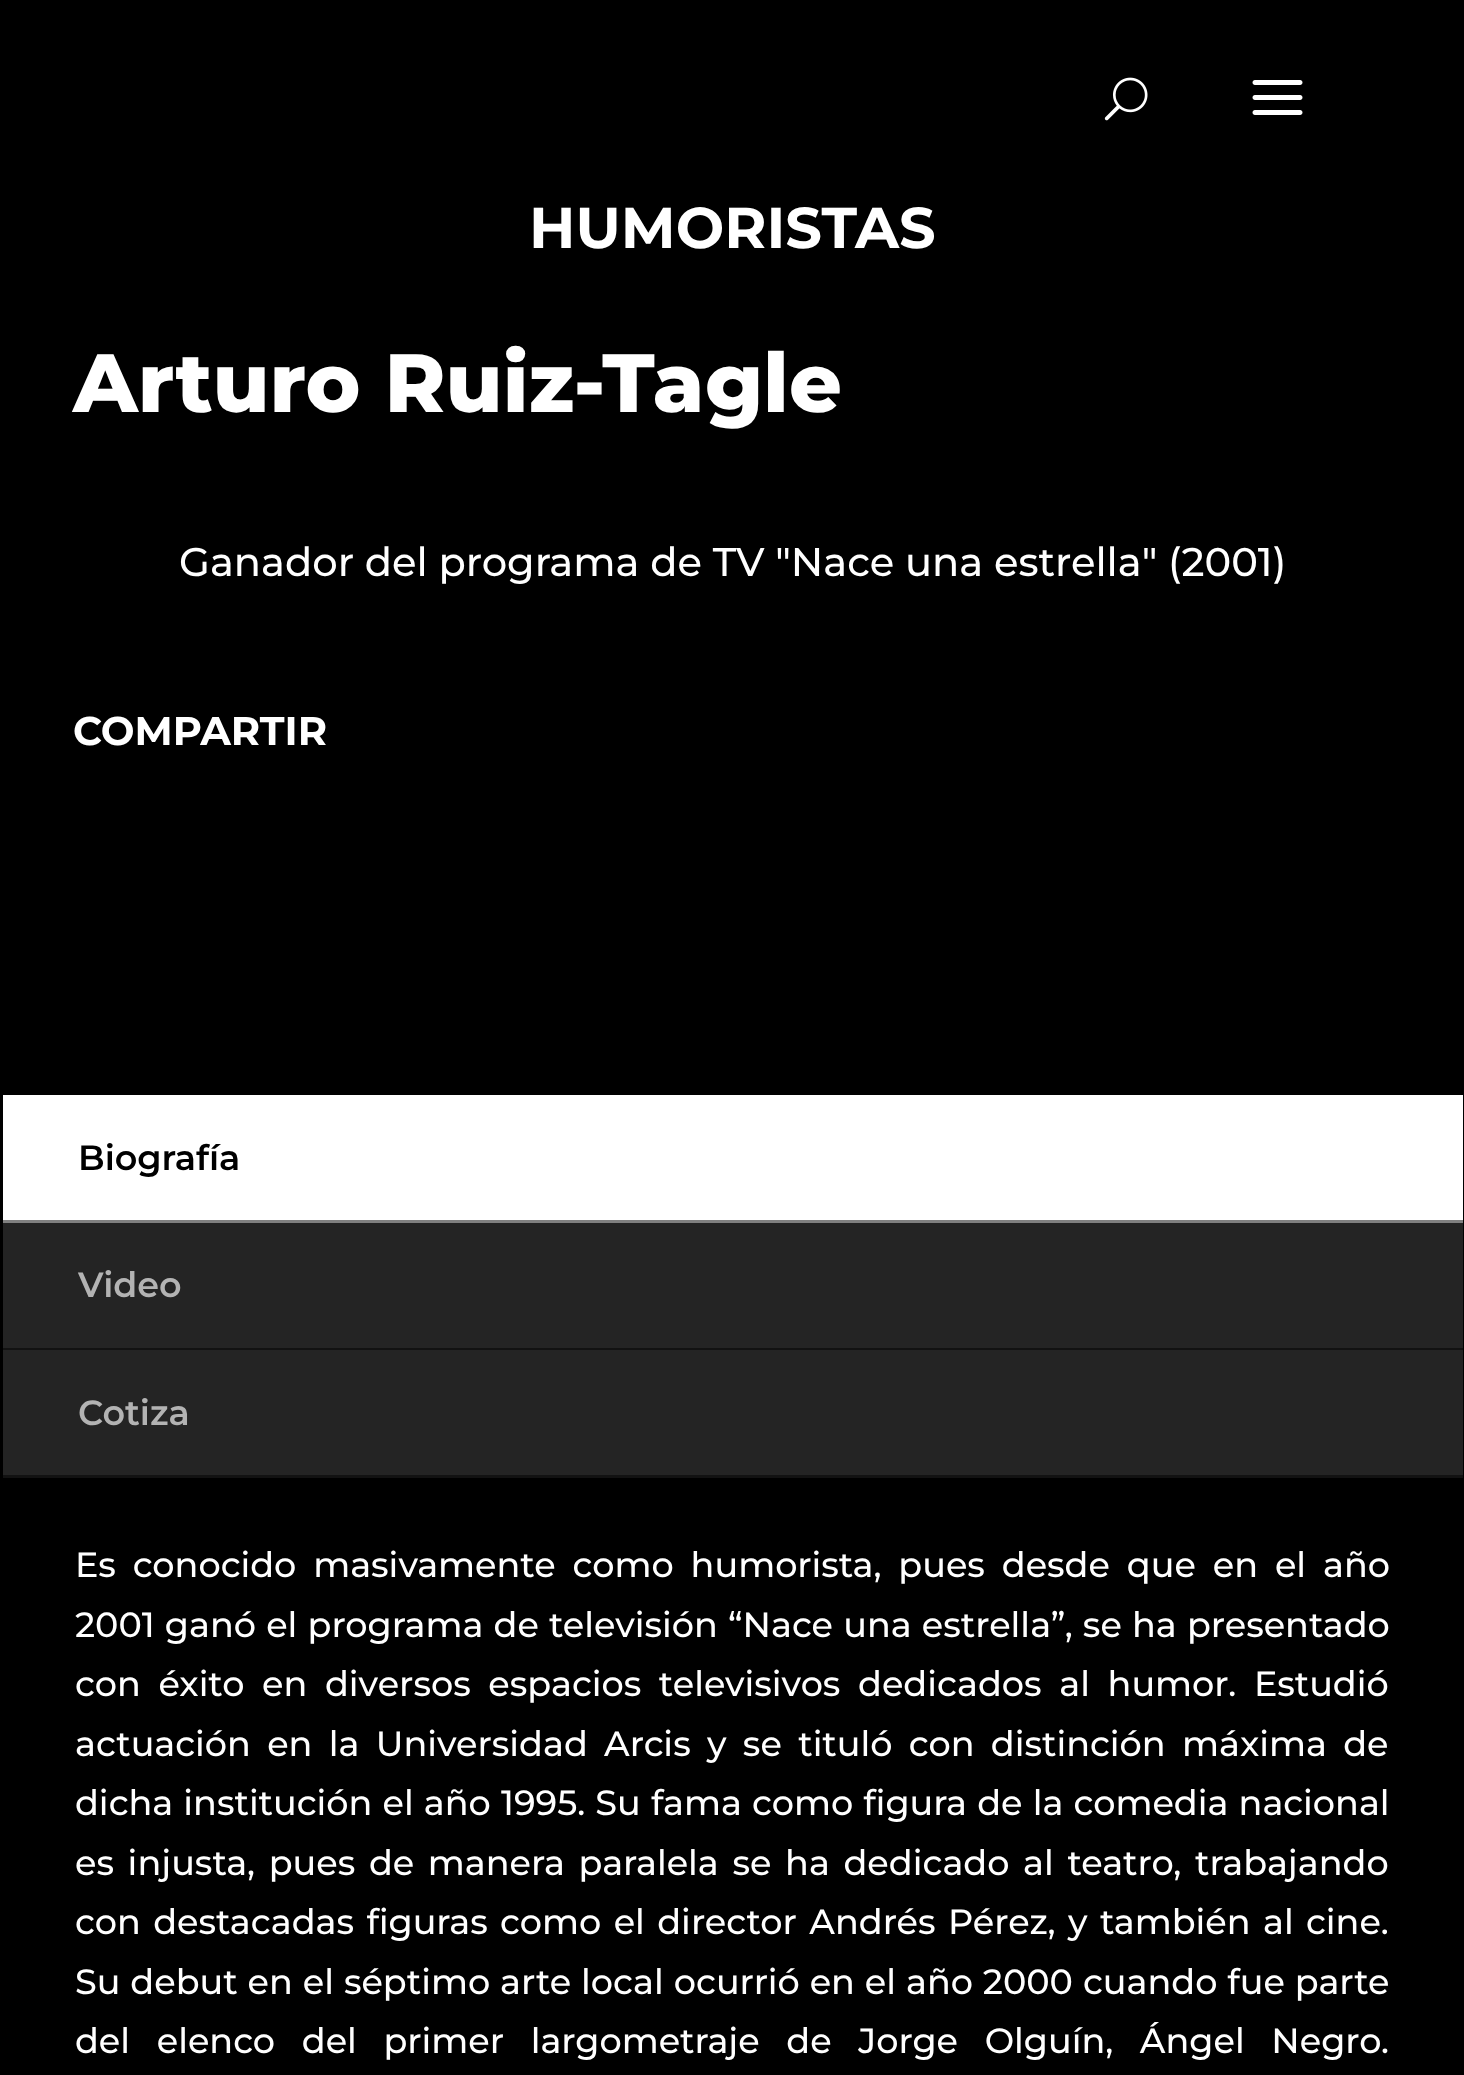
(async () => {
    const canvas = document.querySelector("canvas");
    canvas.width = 1464;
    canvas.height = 2075;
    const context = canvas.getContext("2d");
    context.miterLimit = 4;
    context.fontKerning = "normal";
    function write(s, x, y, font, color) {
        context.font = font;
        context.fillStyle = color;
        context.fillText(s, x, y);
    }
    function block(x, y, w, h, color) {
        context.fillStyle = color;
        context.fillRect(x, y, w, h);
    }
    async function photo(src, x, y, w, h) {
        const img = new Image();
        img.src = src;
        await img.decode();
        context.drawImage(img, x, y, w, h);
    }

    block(0, 0, 1464, 2075, "rgb(0, 0, 0)");
    await photo("media/1.png", 1104, 77, 44, 44);
    await photo("media/2.png", 1252, 80, 51, 35);
    write("HUMORISTAS", 529, 248, "100 57.5px Montserrat", "rgb(255, 255, 255)");
    write("Arturo Ruiz-Tagle", 73, 412, "100 82.5px 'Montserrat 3'", "rgb(255, 255, 255)");
    write("Ganador del programa de TV \"Nace una estrella\" (2001)", 179, 576, "100 40px 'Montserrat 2'", "rgb(255, 255, 255)");
    write("COMPARTIR", 73, 745, "100 40px Montserrat", "rgb(255, 255, 255)");
    block(3, 1095, 1460, 125, "rgb(255, 255, 255)");
    block(3, 1220, 1460, 3, "rgb(128, 128, 128)");
    write("Biografía", 78, 1170, "100 35px 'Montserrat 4'", "rgb(0, 0, 0)");
    block(3, 1223, 1460, 125, "rgb(36, 36, 36)");
    block(3, 1348, 1460, 2, "rgb(18, 18, 18)");
    write("Video", 78, 1297, "100 35px 'Montserrat 4'", "rgb(179, 179, 179)");
    block(3, 1350, 1460, 125, "rgb(36, 36, 36)");
    block(3, 1475, 1460, 3, "rgb(18, 18, 18)");
    write("Cotiza", 78, 1425, "100 35px 'Montserrat 4'", "rgb(179, 179, 179)");
    context.wordSpacing = "7.5px";
    write("Es conocido masivamente como humorista, pues desde que en el año", 75, 1577, "100 35px 'Montserrat 2'", "rgb(255, 255, 255)");
    context.wordSpacing = "0.75px";
    write("2001 ganó el programa de televisión “Nace una estrella”, se ha presentado", 75, 1637, "100 35px 'Montserrat 2'", "rgb(255, 255, 255)");
    context.wordSpacing = "8.25px";
    write("con éxito en diversos espacios televisivos dedicados al humor. Estudió", 75, 1696, "100 35px 'Montserrat 2'", "rgb(255, 255, 255)");
    context.wordSpacing = "6.9px";
    write("actuación en la Universidad Arcis y se tituló con distinción máxima de", 75, 1756, "100 35px 'Montserrat 2'", "rgb(255, 255, 255)");
    context.wordSpacing = "0.75px";
    write("dicha institución el año 1995. Su fama como figura de la comedia nacional", 75, 1815, "100 35px 'Montserrat 2'", "rgb(255, 255, 255)");
    context.wordSpacing = "4.25px";
    write("es injusta, pues de manera paralela se ha dedicado al teatro, trabajando", 75, 1875, "100 35px 'Montserrat 2'", "rgb(255, 255, 255)");
    context.wordSpacing = "3px";
    write("con destacadas figuras como el director Andrés Pérez, y también al cine.", 75, 1934, "100 35px 'Montserrat 2'", "rgb(255, 255, 255)");
    context.wordSpacing = "0.5px";
    write("Su debut en el séptimo arte local ocurrió en el año 2000 cuando fue parte", 75, 1994, "100 35px 'Montserrat 2'", "rgb(255, 255, 255)");
    context.wordSpacing = "17.25px";
    write("del elenco del primer largometraje de Jorge Olguín, Ángel Negro.", 75, 2053, "100 35px 'Montserrat 2'", "rgb(255, 255, 255)");
})();
